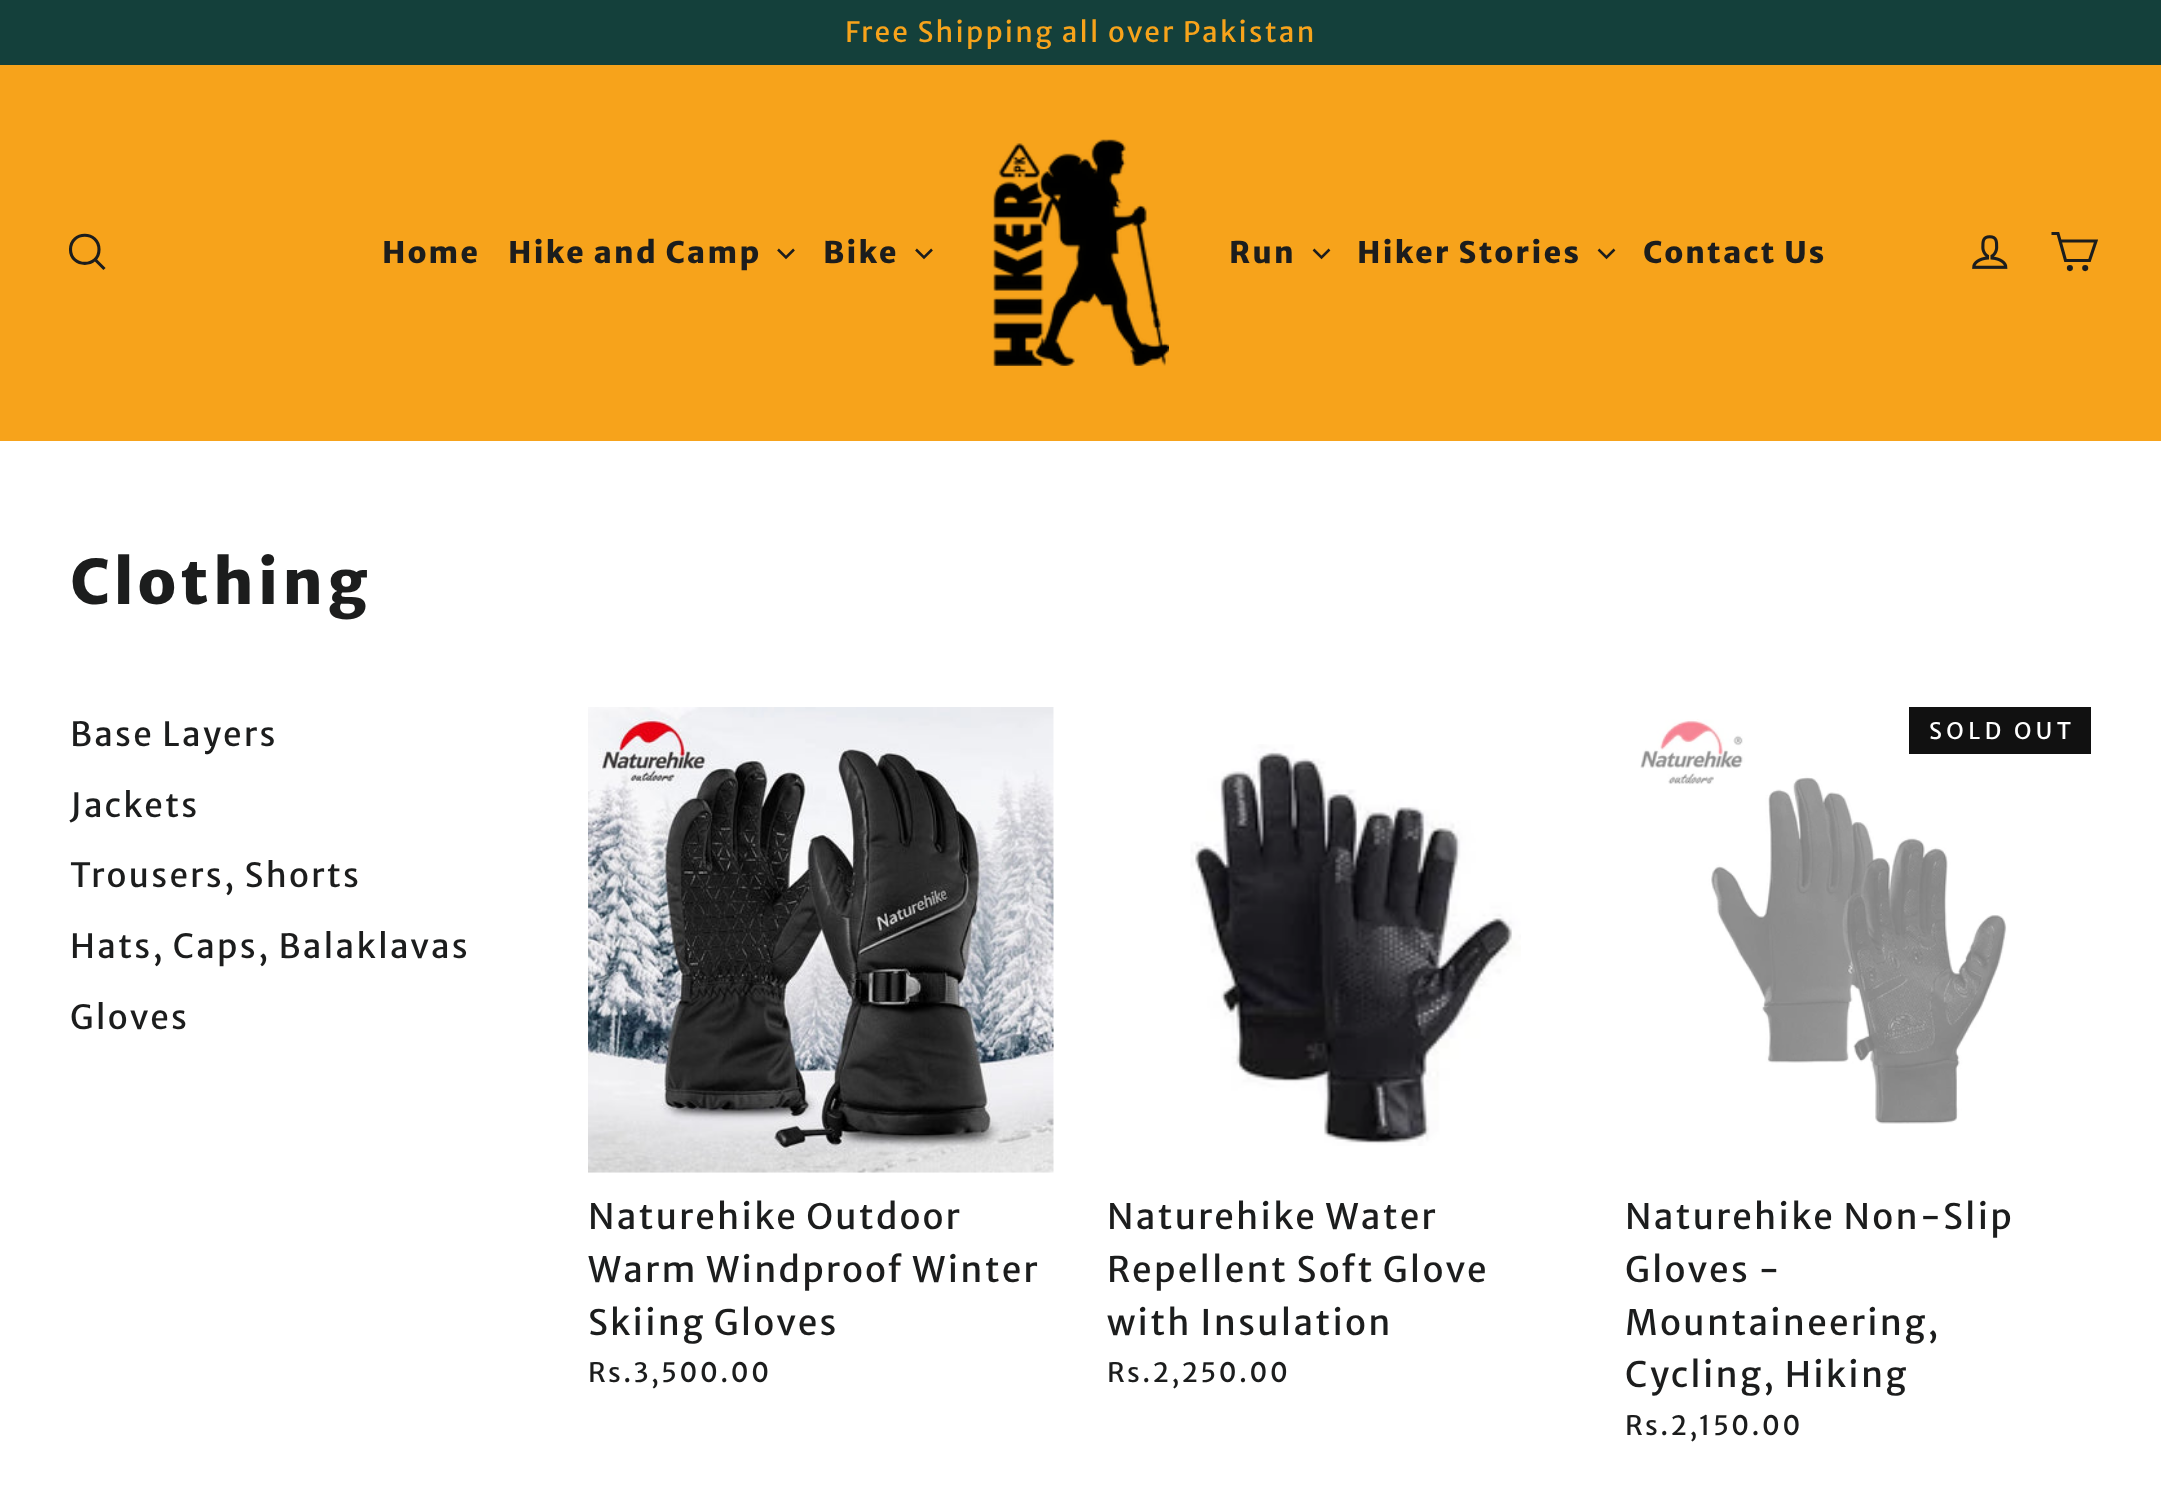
(async () => {
    const canvas = document.querySelector("canvas");
    canvas.width = 2161;
    canvas.height = 1493;
    const context = canvas.getContext("2d");
    context.miterLimit = 4;
    context.fontKerning = "normal";
    function write(s, x, y, font, color) {
        context.font = font;
        context.fillStyle = color;
        context.fillText(s, x, y);
    }
    function block(x, y, w, h, color) {
        context.fillStyle = color;
        context.fillRect(x, y, w, h);
    }
    async function photo(src, x, y, w, h) {
        const img = new Image();
        img.src = src;
        await img.decode();
        context.drawImage(img, x, y, w, h);
    }

    block(0, 0, 2161, 1493, "rgb(255, 255, 255)");
    block(0, 0, 2161, 65, "rgb(20, 64, 59)");
    context.letterSpacing = "2.25px";
    write("Free Shipping all over Pakistan", 845, 42, "28px Merriweather Sans", "rgb(247, 163, 27)");
    block(0, 65, 2161, 376, "rgb(247, 163, 27)");
    context.beginPath();
    context.moveTo(99, 249.5);
    context.bezierCurveTo(99, 268, 70.5, 268, 70.5, 249.5);
    context.bezierCurveTo(70.5, 230.5, 99, 230.5, 99, 249.5);
    context.closePath();
    context.moveTo(104.5, 269);
    context.lineTo(95, 259.5);
    context.strokeStyle = "rgb(28, 29, 29)";
    context.lineWidth = 3.1;
    context.stroke();
    write("Home", 382, 263, "800 29.75px Merriweather Sans", "rgb(28, 29, 29)");
    write("Hike and Camp", 508, 263, "800 29.75px Merriweather Sans", "rgb(28, 29, 29)");
    context.beginPath();
    context.moveTo(778, 249.5);
    context.lineTo(786, 257.5);
    context.lineTo(794, 249.5);
    context.lineWidth = 2.5;
    context.stroke();
    write("Bike", 823, 263, "800 29.75px Merriweather Sans", "rgb(28, 29, 29)");
    context.beginPath();
    context.moveTo(916, 249.5);
    context.lineTo(924, 257.5);
    context.lineTo(932, 249.5);
    context.stroke();
    await photo("media/1.png", 993, 139, 176, 227);
    write("Run", 1229, 263, "800 29.75px Merriweather Sans", "rgb(28, 29, 29)");
    context.beginPath();
    context.moveTo(1313.5, 249.5);
    context.lineTo(1321.5, 257.5);
    context.lineTo(1329.5, 249.5);
    context.stroke();
    write("Hiker Stories", 1357, 263, "800 29.75px Merriweather Sans", "rgb(28, 29, 29)");
    context.beginPath();
    context.moveTo(1598.5, 249.5);
    context.lineTo(1606.5, 257.5);
    context.lineTo(1614.5, 249.5);
    context.stroke();
    write("Contact Us", 1643, 263, "800 29.75px Merriweather Sans", "rgb(28, 29, 29)");
    await photo("media/2.png", 1972, 235, 36, 34);
    context.beginPath();
    context.moveTo(2060, 241);
    context.lineTo(2096, 241);
    context.lineTo(2089.5, 260.5);
    context.lineTo(2065.5, 260.5);
    context.lineTo(2058, 233.5);
    context.lineTo(2051.5, 233.5);
    context.lineWidth = 3.1;
    context.stroke();
    context.beginPath();
    context.arc(2069.9, 268.1, 1.5, 0, Math.PI * 2);
    context.stroke();
    context.beginPath();
    context.arc(2085.2, 268.1, 1.5, 0, Math.PI * 2);
    context.stroke();
    context.letterSpacing = "4.5px";
    write("Clothing", 70, 604, "800 61.25px Merriweather Sans", "rgb(28, 29, 29)");
    context.letterSpacing = "2.25px";
    write("Base Layers", 70, 746, "33.25px Merriweather Sans", "rgb(28, 29, 29)");
    write("Jackets", 70, 817, "33.25px Merriweather Sans", "rgb(28, 29, 29)");
    write("Trousers, Shorts", 70, 887, "33.25px Merriweather Sans", "rgb(28, 29, 29)");
    write("Hats, Caps, Balaklavas", 70, 958, "33.25px Merriweather Sans", "rgb(28, 29, 29)");
    write("Gloves", 70, 1029, "33.25px Merriweather Sans", "rgb(28, 29, 29)");
    await photo("media/3.png", 588, 707, 466, 466);
    write("Naturehike Outdoor", 588, 1229, "35.1px Merriweather Sans", "rgb(28, 29, 29)");
    write("Warm Windproof Winter", 588, 1282, "35.1px Merriweather Sans", "rgb(28, 29, 29)");
    write("Skiing Gloves", 588, 1335, "35.1px Merriweather Sans", "rgb(28, 29, 29)");
    write("Rs.3,500.00", 588, 1382, "26.75px Merriweather Sans", "rgb(28, 29, 29)");
    await photo("media/4.png", 1190, 744, 331, 402);
    write("Naturehike Water", 1107, 1229, "35.1px Merriweather Sans", "rgb(28, 29, 29)");
    write("Repellent Soft Glove", 1107, 1282, "35.1px Merriweather Sans", "rgb(28, 29, 29)");
    write("with Insulation", 1107, 1335, "35.1px Merriweather Sans", "rgb(28, 29, 29)");
    write("Rs.2,250.00", 1107, 1382, "26.75px Merriweather Sans", "rgb(28, 29, 29)");
    await photo("media/5.png", 1640, 719, 367, 405);
    block(1909, 707, 182, 47, "rgb(17, 17, 17)");
    context.letterSpacing = "4.5px";
    write("SOLD OUT", 1929, 739, "22.75px Merriweather Sans", "rgb(255, 255, 255)");
    context.letterSpacing = "2.25px";
    write("Naturehike Non-Slip", 1625, 1229, "35.1px Merriweather Sans", "rgb(28, 29, 29)");
    write("Gloves -", 1625, 1282, "35.1px Merriweather Sans", "rgb(28, 29, 29)");
    write("Mountaineering,", 1625, 1335, "35.1px Merriweather Sans", "rgb(28, 29, 29)");
    write("Cycling, Hiking", 1625, 1387, "35.1px Merriweather Sans", "rgb(28, 29, 29)");
    write("Rs.2,150.00", 1625, 1435, "26.75px Merriweather Sans", "rgb(28, 29, 29)");
})();
